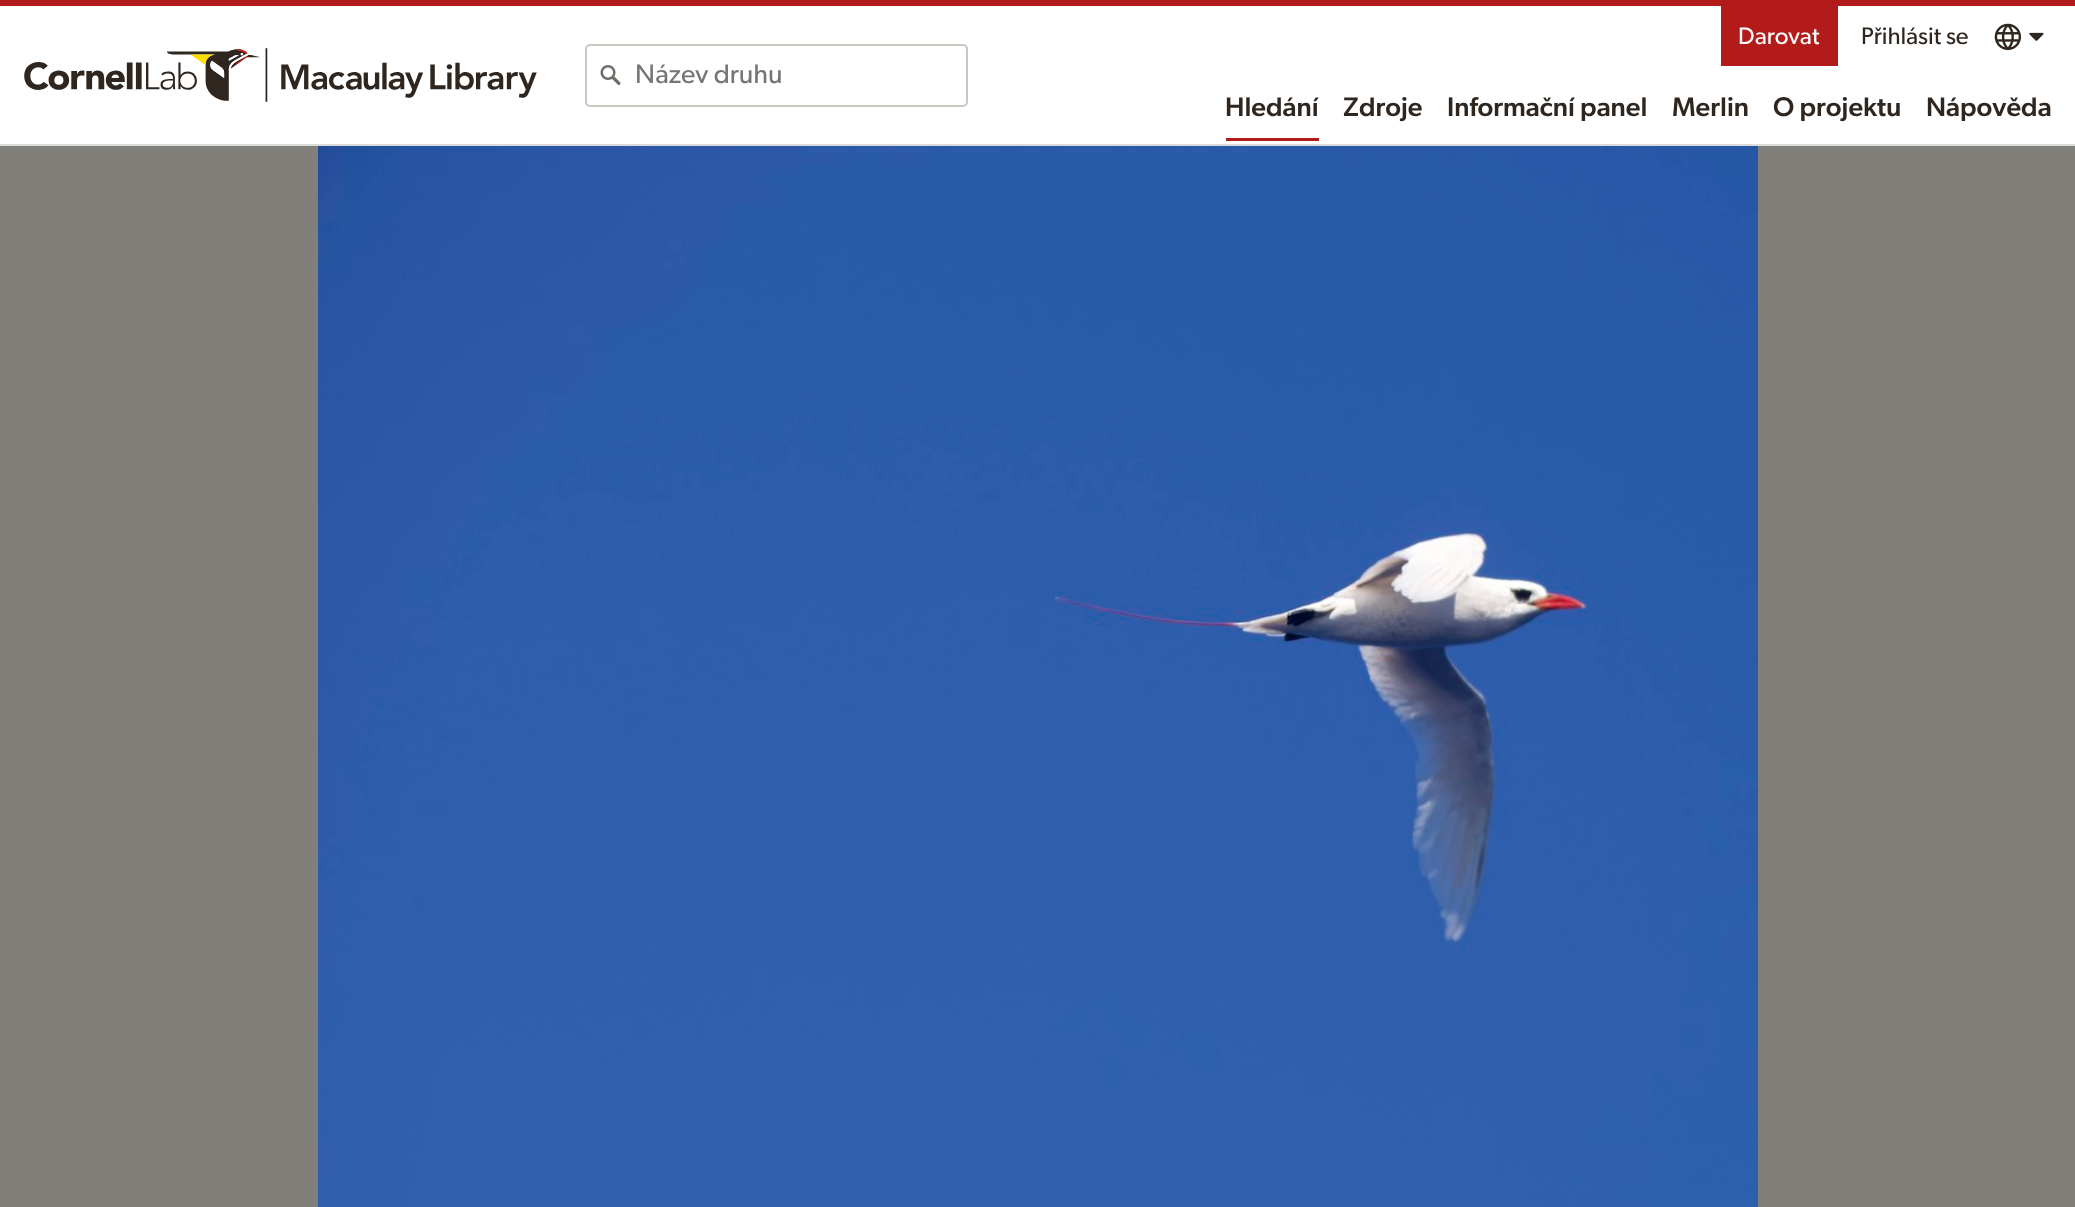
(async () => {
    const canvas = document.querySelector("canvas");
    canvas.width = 2075;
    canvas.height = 1207;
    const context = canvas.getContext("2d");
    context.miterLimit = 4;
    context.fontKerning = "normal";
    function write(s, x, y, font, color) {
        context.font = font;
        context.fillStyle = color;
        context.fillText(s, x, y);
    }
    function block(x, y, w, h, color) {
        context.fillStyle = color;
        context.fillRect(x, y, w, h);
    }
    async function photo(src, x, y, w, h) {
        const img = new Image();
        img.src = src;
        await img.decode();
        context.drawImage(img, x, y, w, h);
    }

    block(0, 0, 2075, 1207, "rgb(129, 127, 121)");
    block(0, 6, 2075, 138, "rgb(255, 255, 255)");
    block(0, 0, 2075, 6, "rgb(179, 27, 27)");
    block(0, 144, 2075, 2, "rgb(219, 219, 217)");
    await photo("media/1.png", 24, 48, 513, 54);
    context.beginPath();
    context.roundRect(586, 45, 381, 61, 4);
    context.strokeStyle = "rgb(200, 199, 192)";
    context.lineWidth = 2;
    context.stroke();
    await photo("media/2.png", 600, 65, 21, 20);
    write("Název druhu", 635, 83, "27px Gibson", "rgb(117, 117, 117)");
    block(1721, 6, 117, 60, "rgb(179, 27, 27)");
    write("Darovat", 1738, 44, "24px Gibson", "rgb(255, 255, 255)");
    write("Přihlásit se", 1861, 44, "24px Gibson", "rgb(46, 38, 31)");
    await photo("media/3.png", 1994, 23, 28, 28);
    await photo("media/4.png", 2029, 32, 15, 9);
    block(1226, 138, 93, 3, "rgb(179, 27, 27)");
    write("Hledání", 1225, 116, "500 27px Gibson", "rgb(46, 38, 31)");
    write("Zdroje", 1343, 116, "500 27px Gibson", "rgb(46, 38, 31)");
    write("Informační panel", 1447, 116, "500 27px Gibson", "rgb(46, 38, 31)");
    write("Merlin", 1672, 116, "500 27px Gibson", "rgb(46, 38, 31)");
    write("O projektu", 1773, 116, "500 27px Gibson", "rgb(46, 38, 31)");
    write("Nápověda", 1926, 116, "500 27px Gibson", "rgb(46, 38, 31)");
    await photo("media/5.png", 318, 146, 1440, 1061);
})();
